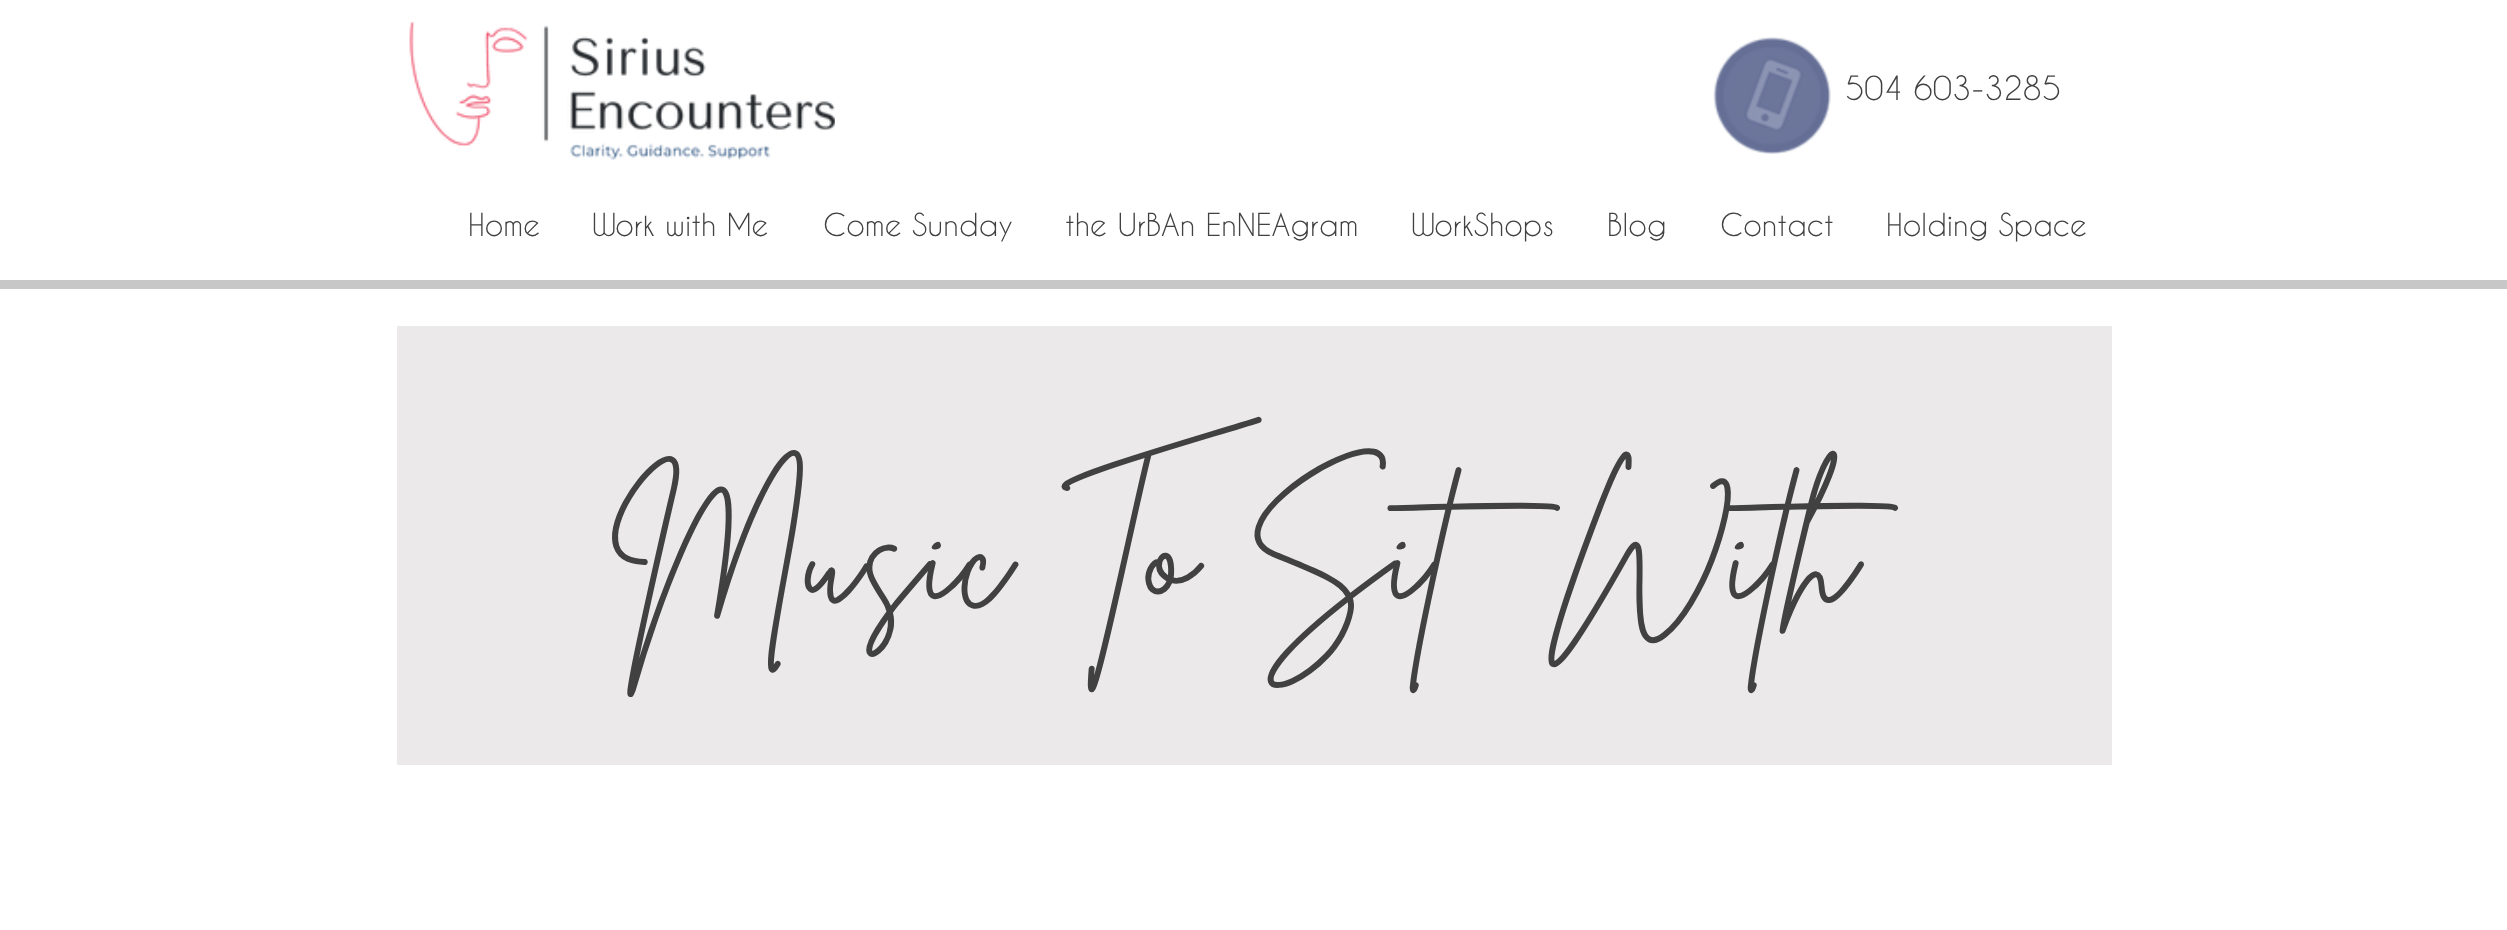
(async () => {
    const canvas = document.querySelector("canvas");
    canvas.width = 2507;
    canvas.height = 930;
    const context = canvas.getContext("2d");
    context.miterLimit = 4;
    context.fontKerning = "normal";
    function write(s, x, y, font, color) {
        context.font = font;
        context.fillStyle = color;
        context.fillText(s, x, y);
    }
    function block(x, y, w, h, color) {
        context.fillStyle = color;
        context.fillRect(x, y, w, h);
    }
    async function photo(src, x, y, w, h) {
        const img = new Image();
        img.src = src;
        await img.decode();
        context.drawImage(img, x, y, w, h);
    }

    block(0, 0, 2507, 930, "rgb(255, 255, 255)");
    await photo("media/1.png", 409, 21, 426, 139);
    await photo("media/2.png", 1713, 37, 118, 117);
    write("504 603-3285", 1845, 100, "31.5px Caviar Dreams", "rgb(65, 65, 65)");
    write("Home", 468, 236, "29.75px Caviar Dreams", "rgb(65, 65, 65)");
    write("Work with Me", 592, 236, "29.75px Caviar Dreams", "rgb(65, 65, 65)");
    write("Come Sunday", 823, 236, "29.75px Caviar Dreams", "rgb(65, 65, 65)");
    write("the UrBAn EnNEAgram", 1065, 236, "29.75px Caviar Dreams", "rgb(65, 65, 65)");
    write("WorkShops", 1411, 236, "29.75px Caviar Dreams", "rgb(65, 65, 65)");
    write("Blog", 1607, 236, "29.75px Caviar Dreams", "rgb(65, 65, 65)");
    write("Contact", 1720, 236, "29.75px Caviar Dreams", "rgb(65, 65, 65)");
    write("Holding Space", 1886, 236, "29.75px Caviar Dreams", "rgb(65, 65, 65)");
    block(0, 280, 2507, 9, "rgb(199, 199, 199)");
    block(397, 326, 1715, 439, "rgb(235, 233, 233)");
    context.letterSpacing = "1.5px";
    write("Music To Sit  With", 610, 597, "154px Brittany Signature", "rgb(65, 65, 65)");
})();
